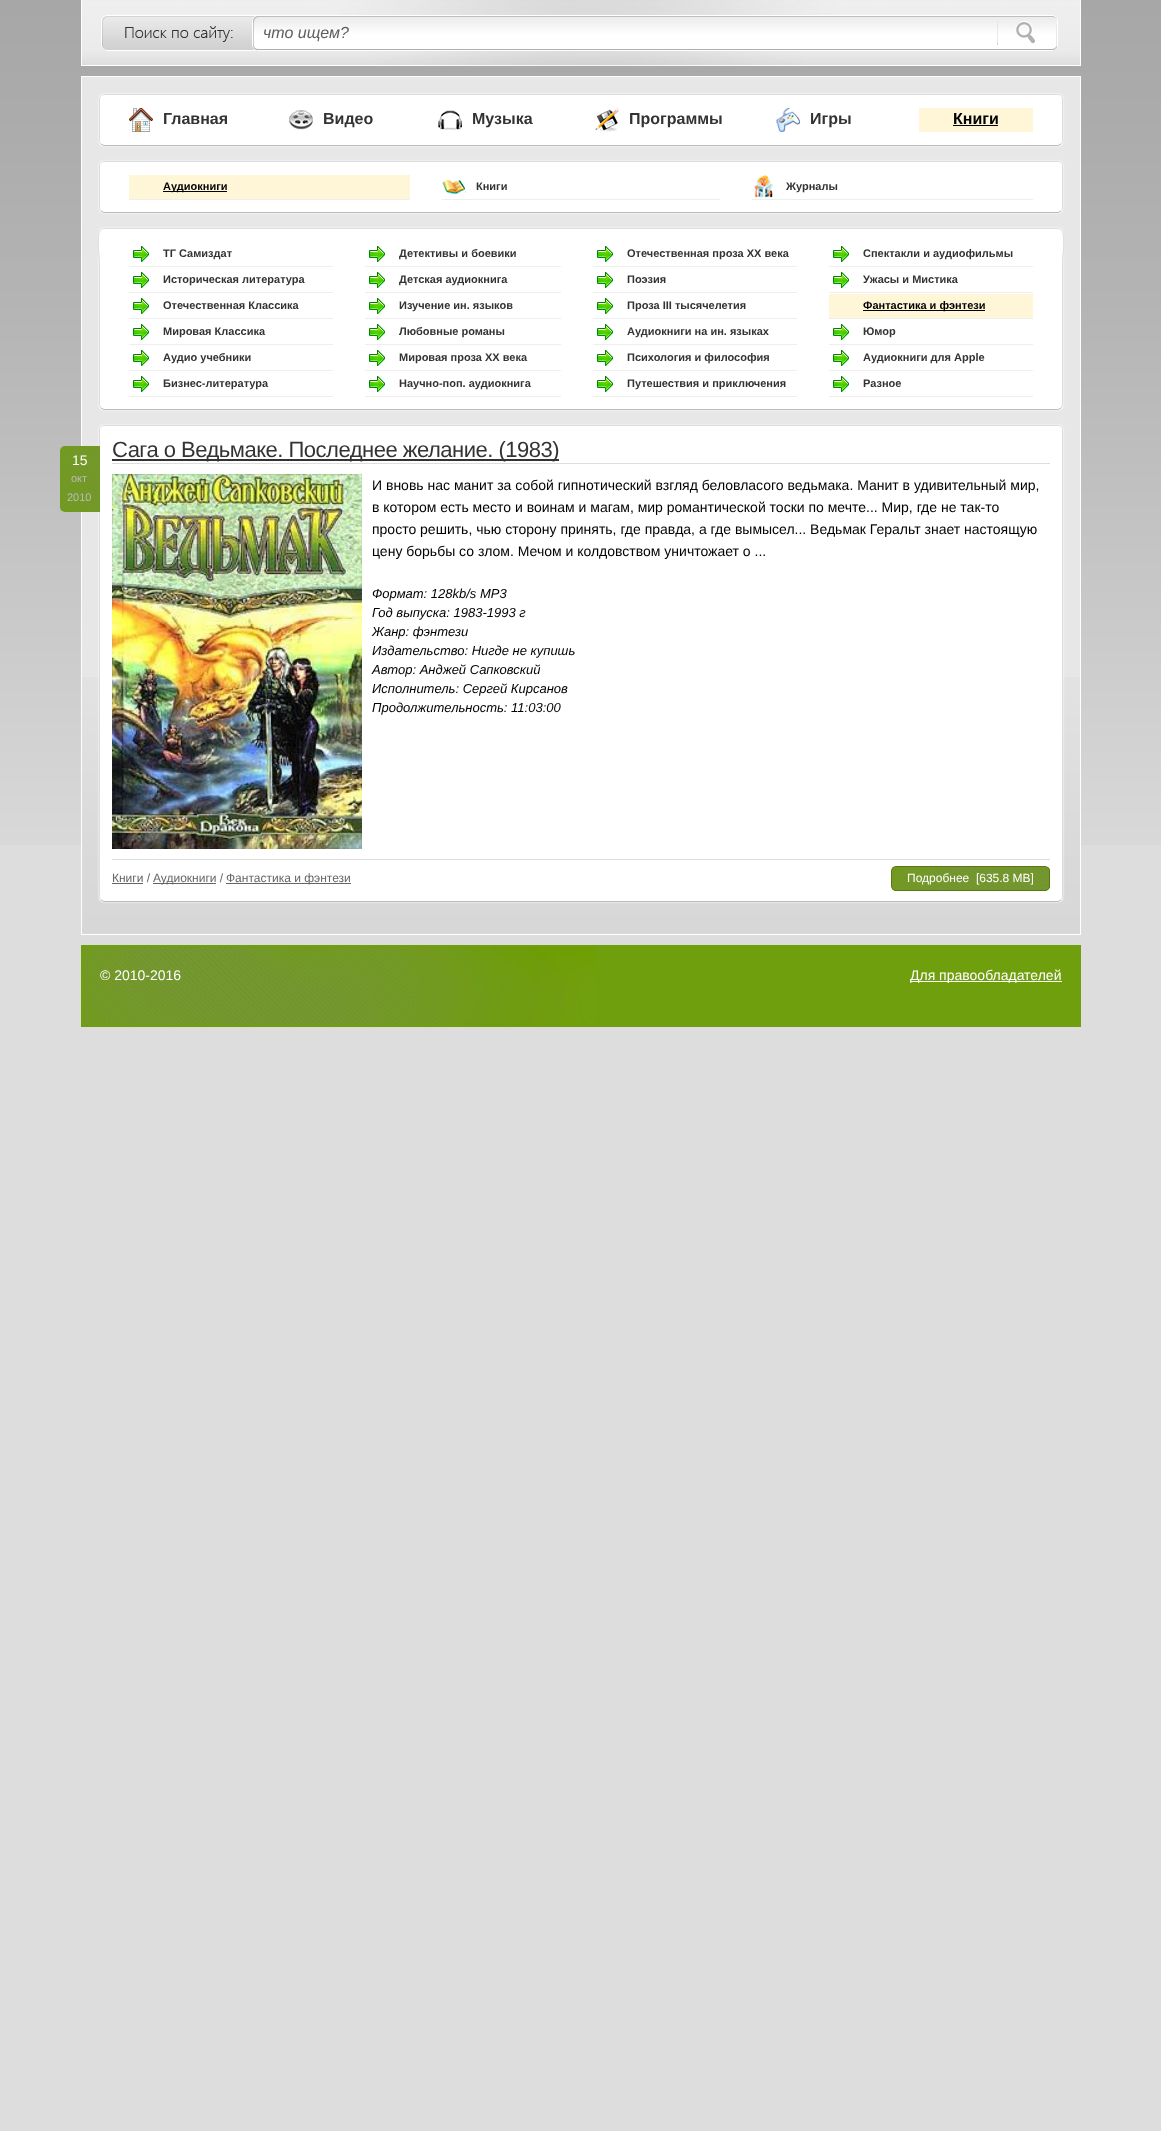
(async () => {
    const canvas = document.querySelector("canvas");
    canvas.width = 1161;
    canvas.height = 2131;
    const context = canvas.getContext("2d");
    context.miterLimit = 4;
    context.fontKerning = "normal";
    function write(s, x, y, font, color) {
        context.font = font;
        context.fillStyle = color;
        context.fillText(s, x, y);
    }
    function block(x, y, w, h, color) {
        context.fillStyle = color;
        context.fillRect(x, y, w, h);
    }
    function card(x, y, w, h, r, color) {
        context.fillStyle = color;
        context.beginPath();
        context.roundRect(x, y, w, h, r);
        context.fill();
    }
    async function photo(src, x, y, w, h) {
        const img = new Image();
        img.src = src;
        await img.decode();
        context.drawImage(img, x, y, w, h);
    }

    block(0, 0, 1161, 2131, "rgb(221, 221, 221)");
    await photo("media/1.png", 0, 0, 1161, 845);
    await photo("media/2.png", 81, 0, 1000, 66);
    await photo("media/3.png", 101, 15, 957, 36);
    write("что ищем?", 263, 38, "italic 16px Liberation Sans", "rgb(94, 94, 94)");
    block(82, 77, 998, 600, "rgb(231, 231, 231)");
    await photo("media/4.png", 82, 677, 998, 257);
    context.strokeStyle = "rgb(255, 255, 255)";
    context.strokeRect(81.5, 76.5, 999, 858);
    context.fillStyle = "rgb(255, 255, 255)";
    context.filter = "blur(1px)";
    context.beginPath();
    context.roundRect(99, 94, 964, 52, 5);
    context.fill();
    context.filter = "none";
    card(99, 94, 964, 52, 5, "rgb(255, 255, 255)");
    context.beginPath();
    context.moveTo(1061, 144);
    context.lineTo(1058, 145.5);
    context.lineTo(104, 145.5);
    context.lineTo(101, 144);
    context.strokeStyle = "rgb(187, 187, 187)";
    context.stroke();
    context.beginPath();
    context.moveTo(101, 144);
    context.bezierCurveTo(100, 143.5, 99.5, 142, 99.5, 141);
    context.lineTo(99.5, 99);
    context.bezierCurveTo(99.5, 98, 100, 96.5, 101, 96);
    context.bezierCurveTo(101.5, 95, 103, 94.5, 104, 94.5);
    context.lineTo(1058, 94.5);
    context.bezierCurveTo(1059, 94.5, 1060.5, 95, 1061, 96);
    context.bezierCurveTo(1062, 96.5, 1062.5, 98, 1062.5, 99);
    context.lineTo(1062.5, 141);
    context.bezierCurveTo(1062.5, 142, 1062, 143.5, 1061, 144);
    context.strokeStyle = "rgb(221, 221, 221)";
    context.stroke();
    await photo("media/5.png", 129, 108, 24, 24);
    write("Главная", 163, 124, "bold 16px Liberation Sans", "rgb(51, 51, 51)");
    await photo("media/6.png", 289, 110, 24, 20);
    write("Видео", 323, 124, "bold 16px Liberation Sans", "rgb(51, 51, 51)");
    await photo("media/7.png", 438, 110, 24, 20);
    write("Музыка", 472, 124, "bold 16px Liberation Sans", "rgb(51, 51, 51)");
    await photo("media/8.png", 595, 108, 24, 24);
    write("Программы", 629, 124, "bold 16px Liberation Sans", "rgb(51, 51, 51)");
    await photo("media/9.png", 776, 108, 24, 24);
    write("Игры", 810, 124, "bold 16px Liberation Sans", "rgb(51, 51, 51)");
    block(919, 108, 114, 24, "rgb(254, 246, 215)");
    write("Книги", 953, 124, "bold 16px Liberation Sans", "rgb(0, 0, 0)");
    block(953, 125, 45, 1, "rgb(0, 0, 0)");
    context.fillStyle = "rgb(255, 255, 255)";
    context.filter = "blur(1px)";
    context.beginPath();
    context.roundRect(99, 161, 964, 52, 5);
    context.fill();
    context.filter = "none";
    card(99, 161, 964, 52, 5, "rgb(255, 255, 255)");
    context.beginPath();
    context.moveTo(1061, 211);
    context.lineTo(1058, 212.5);
    context.lineTo(104, 212.5);
    context.lineTo(101, 211);
    context.strokeStyle = "rgb(187, 187, 187)";
    context.stroke();
    context.beginPath();
    context.moveTo(101, 211);
    context.bezierCurveTo(100, 210.5, 99.5, 209, 99.5, 208);
    context.lineTo(99.5, 166);
    context.bezierCurveTo(99.5, 165, 100, 163.5, 101, 163);
    context.bezierCurveTo(101.5, 162, 103, 161.5, 104, 161.5);
    context.lineTo(1058, 161.5);
    context.bezierCurveTo(1059, 161.5, 1060.5, 162, 1061, 163);
    context.bezierCurveTo(1062, 163.5, 1062.5, 165, 1062.5, 166);
    context.lineTo(1062.5, 208);
    context.bezierCurveTo(1062.5, 209, 1062, 210.5, 1061, 211);
    context.strokeStyle = "rgb(221, 221, 221)";
    context.stroke();
    block(129, 175, 281, 24, "rgb(254, 246, 215)");
    block(129, 199, 281, 1, "rgb(238, 238, 238)");
    block(163, 191, 64, 1, "rgb(0, 0, 0)");
    write("Аудиокниги", 163, 190, "bold 11px Liberation Sans", "rgb(0, 0, 0)");
    block(442, 199, 278, 1, "rgb(238, 238, 238)");
    await photo("media/10.png", 442, 179, 24, 16);
    write("Книги", 476, 190, "bold 11px Liberation Sans", "rgb(51, 51, 51)");
    block(752, 199, 281, 1, "rgb(238, 238, 238)");
    await photo("media/11.png", 754, 175, 19, 23);
    write("Журналы", 786, 190, "bold 11px Liberation Sans", "rgb(51, 51, 51)");
    context.fillStyle = "rgb(255, 255, 255)";
    context.filter = "blur(1px)";
    context.beginPath();
    context.roundRect(99, 228, 964, 182, 5);
    context.fill();
    context.filter = "none";
    card(99, 228, 964, 182, 5, "rgb(255, 255, 255)");
    context.beginPath();
    context.moveTo(1061, 408);
    context.lineTo(1058, 409.5);
    context.lineTo(104, 409.5);
    context.lineTo(101, 408);
    context.strokeStyle = "rgb(187, 187, 187)";
    context.stroke();
    context.beginPath();
    context.moveTo(101, 408);
    context.lineTo(99.5, 405);
    context.lineTo(99.5, 261.5);
    context.bezierCurveTo(99.5, 254, 94.5, 228.5, 104, 228.5);
    context.lineTo(1058, 228.5);
    context.bezierCurveTo(1067.5, 228.5, 1062.5, 254, 1062.5, 261.5);
    context.lineTo(1062.5, 405);
    context.lineTo(1061, 408);
    context.strokeStyle = "rgb(221, 221, 221)";
    context.stroke();
    block(129, 266, 204, 1, "rgb(238, 238, 238)");
    await photo("media/12.png", 133, 246, 16, 16);
    write("ТГ Самиздат", 163, 257, "bold 11px Liberation Sans", "rgb(51, 51, 51)");
    block(129, 292, 204, 1, "rgb(238, 238, 238)");
    await photo("media/12.png", 133, 272, 16, 16);
    write("Историческая литература", 163, 283, "bold 11px Liberation Sans", "rgb(51, 51, 51)");
    block(129, 318, 204, 1, "rgb(238, 238, 238)");
    await photo("media/12.png", 133, 298, 16, 16);
    write("Отечественная Классика", 163, 309, "bold 11px Liberation Sans", "rgb(51, 51, 51)");
    block(129, 344, 204, 1, "rgb(238, 238, 238)");
    await photo("media/12.png", 133, 324, 16, 16);
    write("Мировая Классика", 163, 335, "bold 11px Liberation Sans", "rgb(51, 51, 51)");
    block(129, 370, 204, 1, "rgb(238, 238, 238)");
    await photo("media/12.png", 133, 350, 16, 16);
    write("Аудио учебники", 163, 361, "bold 11px Liberation Sans", "rgb(51, 51, 51)");
    block(129, 396, 204, 1, "rgb(238, 238, 238)");
    await photo("media/12.png", 133, 376, 16, 16);
    write("Бизнес-литература", 163, 387, "bold 11px Liberation Sans", "rgb(51, 51, 51)");
    block(365, 266, 196, 1, "rgb(238, 238, 238)");
    await photo("media/12.png", 369, 246, 16, 16);
    write("Детективы и боевики", 399, 257, "bold 11px Liberation Sans", "rgb(51, 51, 51)");
    block(365, 292, 196, 1, "rgb(238, 238, 238)");
    await photo("media/12.png", 369, 272, 16, 16);
    write("Детская аудиокнига", 399, 283, "bold 11px Liberation Sans", "rgb(51, 51, 51)");
    block(365, 318, 196, 1, "rgb(238, 238, 238)");
    await photo("media/12.png", 369, 298, 16, 16);
    write("Изучение ин. языков", 399, 309, "bold 11px Liberation Sans", "rgb(51, 51, 51)");
    block(365, 344, 196, 1, "rgb(238, 238, 238)");
    await photo("media/12.png", 369, 324, 16, 16);
    write("Любовные романы", 399, 335, "bold 11px Liberation Sans", "rgb(51, 51, 51)");
    block(365, 370, 196, 1, "rgb(238, 238, 238)");
    await photo("media/12.png", 369, 350, 16, 16);
    write("Мировая проза ХХ века", 399, 361, "bold 11px Liberation Sans", "rgb(51, 51, 51)");
    block(365, 396, 196, 1, "rgb(238, 238, 238)");
    await photo("media/12.png", 369, 376, 16, 16);
    write("Научно-поп. аудиокнига", 399, 387, "bold 11px Liberation Sans", "rgb(51, 51, 51)");
    block(593, 266, 204, 1, "rgb(238, 238, 238)");
    await photo("media/12.png", 597, 246, 16, 16);
    write("Отечественная проза ХХ века", 627, 257, "bold 11px Liberation Sans", "rgb(51, 51, 51)");
    block(593, 292, 204, 1, "rgb(238, 238, 238)");
    await photo("media/12.png", 597, 272, 16, 16);
    write("Поэзия", 627, 283, "bold 11px Liberation Sans", "rgb(51, 51, 51)");
    block(593, 318, 204, 1, "rgb(238, 238, 238)");
    await photo("media/12.png", 597, 298, 16, 16);
    write("Проза III тысячелетия", 627, 309, "bold 11px Liberation Sans", "rgb(51, 51, 51)");
    block(593, 344, 204, 1, "rgb(238, 238, 238)");
    await photo("media/12.png", 597, 324, 16, 16);
    write("Аудиокниги на ин. языках", 627, 335, "bold 11px Liberation Sans", "rgb(51, 51, 51)");
    block(593, 370, 204, 1, "rgb(238, 238, 238)");
    await photo("media/12.png", 597, 350, 16, 16);
    write("Психология и философия", 627, 361, "bold 11px Liberation Sans", "rgb(51, 51, 51)");
    block(593, 396, 204, 1, "rgb(238, 238, 238)");
    await photo("media/12.png", 597, 376, 16, 16);
    write("Путешествия и приключения", 627, 387, "bold 11px Liberation Sans", "rgb(51, 51, 51)");
    block(829, 266, 204, 1, "rgb(238, 238, 238)");
    await photo("media/12.png", 833, 246, 16, 16);
    write("Спектакли и аудиофильмы", 863, 257, "bold 11px Liberation Sans", "rgb(51, 51, 51)");
    block(829, 292, 204, 1, "rgb(238, 238, 238)");
    await photo("media/12.png", 833, 272, 16, 16);
    write("Ужасы и Мистика", 863, 283, "bold 11px Liberation Sans", "rgb(51, 51, 51)");
    block(829, 294, 204, 24, "rgb(254, 246, 215)");
    block(829, 318, 204, 1, "rgb(238, 238, 238)");
    block(863, 310, 122, 1, "rgb(0, 0, 0)");
    write("Фантастика и фэнтези", 863, 309, "bold 11px Liberation Sans", "rgb(0, 0, 0)");
    block(829, 344, 204, 1, "rgb(238, 238, 238)");
    await photo("media/12.png", 833, 324, 16, 16);
    write("Юмор", 863, 335, "bold 11px Liberation Sans", "rgb(51, 51, 51)");
    block(829, 370, 204, 1, "rgb(238, 238, 238)");
    await photo("media/12.png", 833, 350, 16, 16);
    write("Аудиокниги для Apple", 863, 361, "bold 11px Liberation Sans", "rgb(51, 51, 51)");
    block(829, 396, 204, 1, "rgb(238, 238, 238)");
    await photo("media/12.png", 833, 376, 16, 16);
    write("Разное", 863, 387, "bold 11px Liberation Sans", "rgb(51, 51, 51)");
    context.fillStyle = "rgb(255, 255, 255)";
    context.filter = "blur(1px)";
    context.beginPath();
    context.roundRect(99, 425, 964, 477, 5);
    context.fill();
    context.filter = "none";
    card(99, 425, 964, 477, 5, "rgb(255, 255, 255)");
    context.beginPath();
    context.moveTo(1061, 900);
    context.lineTo(1058, 901.5);
    context.lineTo(104, 901.5);
    context.lineTo(101, 900);
    context.strokeStyle = "rgb(187, 187, 187)";
    context.stroke();
    context.beginPath();
    context.moveTo(101, 900);
    context.bezierCurveTo(100, 899.5, 99.5, 898, 99.5, 897);
    context.lineTo(99.5, 430);
    context.bezierCurveTo(99.5, 429, 100, 427.5, 101, 427);
    context.bezierCurveTo(101.5, 426, 103, 425.5, 104, 425.5);
    context.lineTo(1058, 425.5);
    context.bezierCurveTo(1059, 425.5, 1060.5, 426, 1061, 427);
    context.bezierCurveTo(1062, 427.5, 1062.5, 429, 1062.5, 430);
    context.lineTo(1062.5, 897);
    context.bezierCurveTo(1062.5, 898, 1062, 899.5, 1061, 900);
    context.strokeStyle = "rgb(221, 221, 221)";
    context.stroke();
    block(112, 463, 938, 1, "rgb(221, 221, 221)");
    block(112, 459, 447, 2, "rgb(51, 51, 51)");
    context.letterSpacing = "-0.5px";
    write("Сага о Ведьмаке. Последнее желание. (1983)", 112, 457, "22px Liberation Sans", "rgb(51, 51, 51)");
    await photo("media/13.png", 60, 446, 40, 66);
    context.letterSpacing = "0px";
    write("15", 72, 465, "14px Liberation Sans", "rgb(255, 255, 255)");
    write("окт", 71, 482, "11px Liberation Sans", "rgb(187, 187, 187)");
    write("2010", 67, 501, "11px Liberation Sans", "rgb(187, 187, 187)");
    await photo("media/14.png", 112, 474, 250, 375);
    write("И вновь нас манит за собой гипнотический взгляд беловласого ведьмака. Манит в удивительный мир,", 372, 490, "14px Liberation Sans", "rgb(0, 0, 0)");
    write("в котором есть место и воинам и магам, мир романтической тоски по мечте... Мир, где не так-то", 372, 512, "14px Liberation Sans", "rgb(0, 0, 0)");
    write("просто решить, чью сторону принять, где правда, а где вымысел... Ведьмак Геральт знает настоящую", 372, 534, "14px Liberation Sans", "rgb(0, 0, 0)");
    write("цену борьбы со злом. Мечом и колдовством уничтожает о ...", 372, 556, "14px Liberation Sans", "rgb(0, 0, 0)");
    write("Формат: 128kb/s MP3", 372, 598, "italic 13px Liberation Sans", "rgb(0, 0, 0)");
    write("Год выпуска: 1983-1993 г", 372, 617, "italic 13px Liberation Sans", "rgb(0, 0, 0)");
    write("Жанр: фэнтези", 372, 636, "italic 13px Liberation Sans", "rgb(0, 0, 0)");
    write("Издательство: Нигде не купишь", 372, 655, "italic 13px Liberation Sans", "rgb(0, 0, 0)");
    write("Автор: Анджей Сапковский", 372, 674, "italic 13px Liberation Sans", "rgb(0, 0, 0)");
    write("Исполнитель: Сергей Кирсанов", 372, 693, "italic 13px Liberation Sans", "rgb(0, 0, 0)");
    write("Продолжительность: 11:03:00", 372, 712, "italic 13px Liberation Sans", "rgb(0, 0, 0)");
    block(112, 859, 938, 1, "rgb(221, 221, 221)");
    write("Книги /", 112, 882, "12px Liberation Sans", "rgb(101, 101, 101)");
    block(112, 883, 31, 1, "rgb(101, 101, 101)");
    block(153, 883, 63, 1, "rgb(101, 101, 101)");
    write("Аудиокниги /", 153, 882, "12px Liberation Sans", "rgb(101, 101, 101)");
    block(226, 883, 125, 1, "rgb(101, 101, 101)");
    write("Фантастика и фэнтези", 226, 882, "12px Liberation Sans", "rgb(101, 101, 101)");
    await photo("media/15.png", 892, 867, 158, 24);
    context.beginPath();
    context.roundRect(891.5, 866.5, 158, 24, 4.5);
    context.strokeStyle = "rgb(93, 117, 19)";
    context.stroke();
    write("Подробнее  [635.8 MB]", 907, 882, "12px Liberation Sans", "rgb(255, 255, 255)");
    block(596, 947, 483, 78, "rgb(111, 159, 13)");
    await photo("media/16.png", 83, 947, 513, 78);
    context.strokeStyle = "rgb(111, 159, 13)";
    context.lineWidth = 2;
    context.strokeRect(82, 946, 998, 80);
    write("© 2010-2016", 100, 980, "14px Liberation Sans", "rgb(255, 255, 255)");
    block(910, 981, 152, 1, "rgb(255, 255, 255)");
    write("Для правообладателей", 910, 980, "14px Liberation Sans", "rgb(255, 255, 255)");
})();
